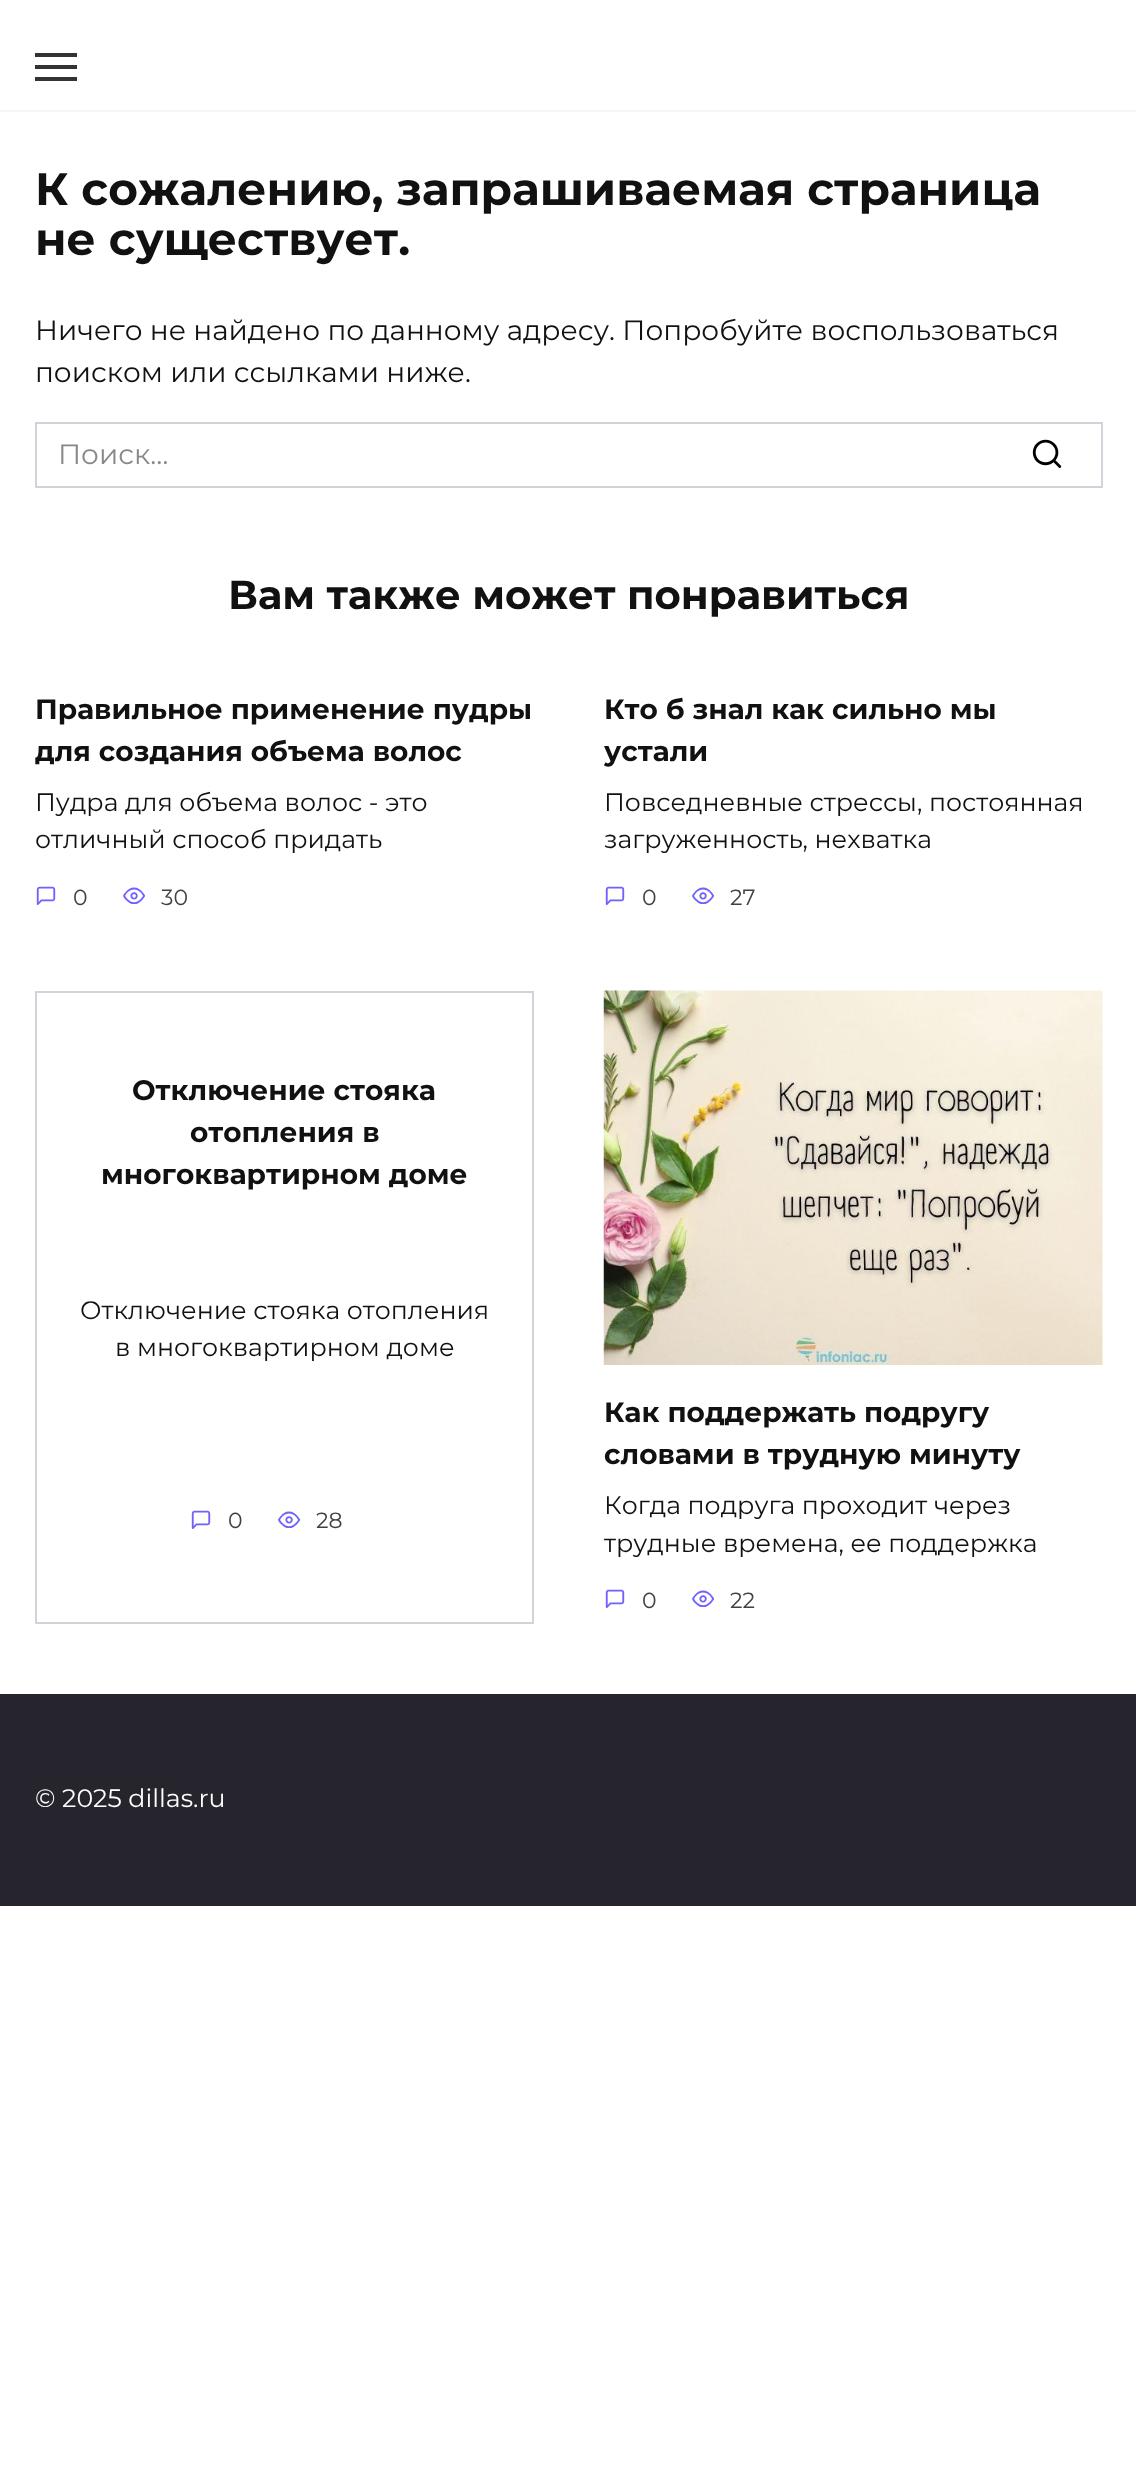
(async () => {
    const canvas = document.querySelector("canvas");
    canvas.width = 1136;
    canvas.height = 2482;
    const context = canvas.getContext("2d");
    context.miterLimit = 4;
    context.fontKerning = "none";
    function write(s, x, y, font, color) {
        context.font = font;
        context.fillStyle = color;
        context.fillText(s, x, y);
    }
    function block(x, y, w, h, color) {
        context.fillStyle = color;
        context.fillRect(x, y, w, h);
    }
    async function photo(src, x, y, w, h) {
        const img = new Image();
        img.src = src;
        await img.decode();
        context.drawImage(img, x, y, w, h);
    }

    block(0, 0, 1136, 2482, "rgb(255, 255, 255)");
    block(0, 110, 1136, 2, "rgb(242, 245, 249)");
    block(35, 53, 42, 4, "rgb(51, 51, 51)");
    block(35, 65, 42, 4, "rgb(51, 51, 51)");
    block(35, 77, 42, 4, "rgb(51, 51, 51)");
    write("К сожалению, запрашиваемая страница", 35, 205, "bold 45.5px Montserrat", "rgb(17, 17, 17)");
    write("не существует.", 35, 255, "bold 45.5px Montserrat", "rgb(17, 17, 17)");
    write("Ничего не найдено по данному адресу. Попробуйте воспользоваться", 35, 340, "28px Montserrat", "rgb(17, 17, 17)");
    write("поиском или ссылками ниже.", 35, 382, "28px Montserrat", "rgb(17, 17, 17)");
    context.strokeStyle = "rgb(206, 212, 218)";
    context.lineWidth = 2;
    context.strokeRect(36, 423, 1066, 64);
    write("Поиск…", 58, 464, "28px Montserrat", "rgb(136, 136, 136)");
    write("🔍", 1030, 468, "34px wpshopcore", "rgb(0, 0, 0)");
    write("Вам также может понравиться", 228, 609, "bold 40.25px Montserrat", "rgb(17, 17, 17)");
    write("Правильное применение пудры", 35, 719, "bold 28px Montserrat", "rgb(17, 17, 17)");
    write("для создания объема волос", 35, 761, "bold 28px Montserrat", "rgb(17, 17, 17)");
    write("Пудра для объема волос - это", 35, 811, "25.25px Montserrat", "rgb(17, 17, 17)");
    write("отличный способ придать", 35, 848, "25.25px Montserrat", "rgb(17, 17, 17)");
    write("💬", 35, 905, "22px wpshopcore", "rgb(113, 98, 254)");
    write("0", 73, 905, "22px Montserrat", "rgb(65, 65, 65)");
    write("👀", 123, 905, "22px wpshopcore", "rgb(113, 98, 254)");
    write("30", 161, 905, "22px Montserrat", "rgb(65, 65, 65)");
    write("Кто б знал как сильно мы", 604, 719, "bold 28px Montserrat", "rgb(17, 17, 17)");
    write("устали", 604, 761, "bold 28px Montserrat", "rgb(17, 17, 17)");
    write("Повседневные стрессы, постоянная", 604, 811, "25.25px Montserrat", "rgb(17, 17, 17)");
    write("загруженность, нехватка", 604, 848, "25.25px Montserrat", "rgb(17, 17, 17)");
    write("💬", 604, 905, "22px wpshopcore", "rgb(113, 98, 254)");
    write("0", 642, 905, "22px Montserrat", "rgb(65, 65, 65)");
    write("👀", 692, 905, "22px wpshopcore", "rgb(113, 98, 254)");
    write("27", 730, 905, "22px Montserrat", "rgb(65, 65, 65)");
    context.strokeRect(36, 992, 497, 631);
    write("Отключение стояка", 132, 1100, "bold 28px Montserrat", "rgb(17, 17, 17)");
    write("отопления в", 190, 1142, "bold 28px Montserrat", "rgb(17, 17, 17)");
    write("многоквартирном доме", 101, 1184, "bold 28px Montserrat", "rgb(17, 17, 17)");
    write("Отключение стояка отопления", 80, 1319, "25.25px Montserrat", "rgb(17, 17, 17)");
    write("в многоквартирном доме", 115, 1356, "25.25px Montserrat", "rgb(17, 17, 17)");
    write("💬", 190, 1529, "22px wpshopcore", "rgb(113, 98, 254)");
    write("0", 228, 1528, "22px Montserrat", "rgb(65, 65, 65)");
    write("👀", 278, 1529, "22px wpshopcore", "rgb(113, 98, 254)");
    write("28", 316, 1528, "22px Montserrat", "rgb(65, 65, 65)");
    await photo("media/1.png", 603, 990, 500, 375);
    write("Как поддержать подругу", 604, 1422, "bold 28px Montserrat", "rgb(17, 17, 17)");
    write("словами в трудную минуту", 604, 1464, "bold 28px Montserrat", "rgb(17, 17, 17)");
    write("Когда подруга проходит через", 604, 1514, "25.25px Montserrat", "rgb(17, 17, 17)");
    write("трудные времена, ее поддержка", 604, 1552, "25.25px Montserrat", "rgb(17, 17, 17)");
    write("💬", 604, 1608, "22px wpshopcore", "rgb(113, 98, 254)");
    write("0", 642, 1608, "22px Montserrat", "rgb(65, 65, 65)");
    write("👀", 692, 1608, "22px wpshopcore", "rgb(113, 98, 254)");
    write("22", 730, 1608, "22px Montserrat", "rgb(65, 65, 65)");
    block(0, 1694, 1136, 212, "rgb(38, 37, 45)");
    write("© 2025 dillas.ru", 35, 1807, "25.25px Montserrat", "rgb(255, 255, 255)");
})();
